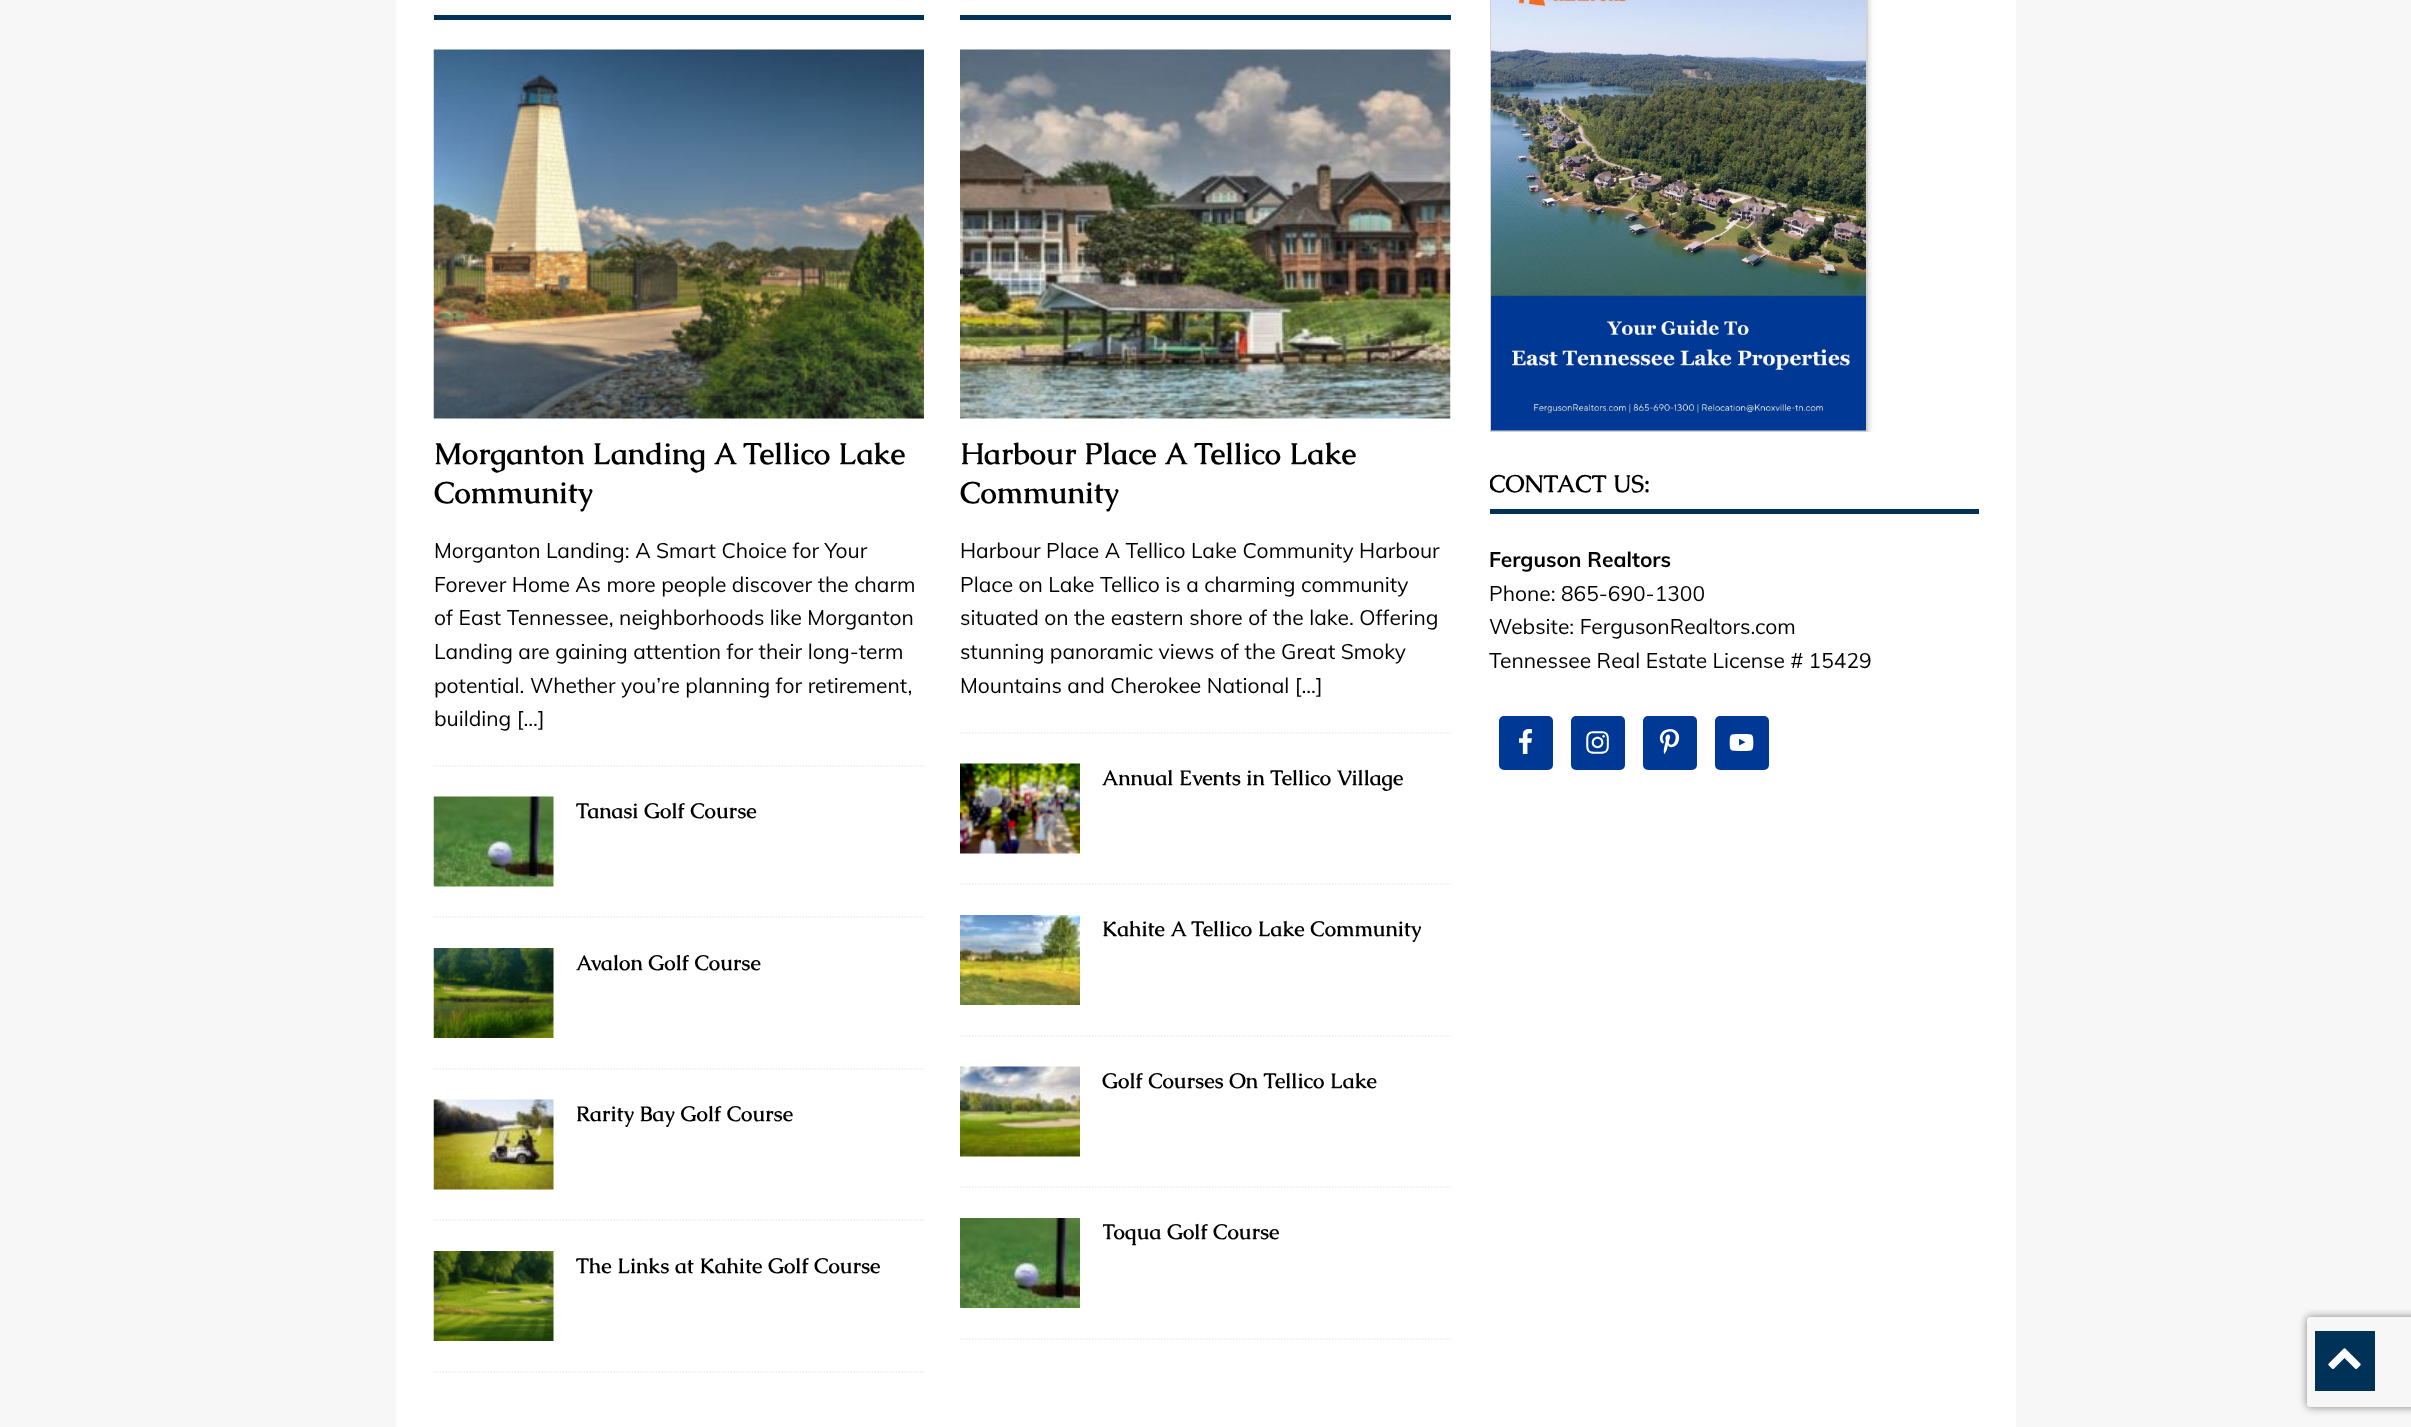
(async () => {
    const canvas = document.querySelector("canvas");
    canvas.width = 2411;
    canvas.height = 1427;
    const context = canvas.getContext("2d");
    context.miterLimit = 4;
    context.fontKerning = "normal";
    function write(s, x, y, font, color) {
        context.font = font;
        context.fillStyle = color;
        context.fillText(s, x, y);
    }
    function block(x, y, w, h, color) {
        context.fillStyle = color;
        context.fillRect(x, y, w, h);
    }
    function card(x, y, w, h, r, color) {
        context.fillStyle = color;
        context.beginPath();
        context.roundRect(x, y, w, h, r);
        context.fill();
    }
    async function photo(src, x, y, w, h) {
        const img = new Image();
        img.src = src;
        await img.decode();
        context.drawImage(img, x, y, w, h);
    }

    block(0, 0, 2411, 1427, "rgb(247, 247, 247)");
    block(396, 0, 1620, 1427, "rgb(255, 255, 255)");
    block(434, 15, 490, 5, "rgb(0, 49, 86)");
    context.beginPath();
    context.moveTo(433.5, 766);
    context.lineTo(924, 766);
    context.strokeStyle = "rgb(235, 235, 235)";
    context.lineWidth = 1.5;
    context.setLineDash([1.5, 1.5]);
    context.stroke();
    await photo("media/1.png", 433, 49, 491, 370);
    write("Morganton Landing A Tellico Lake", 434, 464, "bold 30px Caudex", "rgb(0, 0, 0)");
    write("Community", 434, 503, "bold 30px Caudex", "rgb(0, 0, 0)");
    write("Morganton Landing: A Smart Choice for Your", 434, 558, "21px Muli", "rgb(0, 0, 0)");
    write("Forever Home As more people discover the charm", 434, 592, "21px Muli", "rgb(0, 0, 0)");
    write("of East Tennessee, neighborhoods like Morganton", 434, 625, "21px Muli", "rgb(0, 0, 0)");
    write("Landing are gaining attention for their long-term", 434, 659, "21px Muli", "rgb(0, 0, 0)");
    write("potential. Whether you’re planning for retirement,", 434, 693, "21px Muli", "rgb(0, 0, 0)");
    write("building [...]", 434, 726, "21px Muli", "rgb(0, 0, 0)");
    context.beginPath();
    context.moveTo(433.5, 917);
    context.lineTo(924, 917);
    context.stroke();
    await photo("media/2.png", 433, 796, 121, 91);
    write("Tanasi Golf Course", 576, 818, "bold 21px Caudex", "rgb(0, 0, 0)");
    context.beginPath();
    context.moveTo(433.5, 1069);
    context.lineTo(924, 1069);
    context.stroke();
    await photo("media/3.png", 433, 948, 121, 90);
    write("Avalon Golf Course", 576, 970, "bold 21px Caudex", "rgb(0, 0, 0)");
    context.beginPath();
    context.moveTo(433.5, 1220);
    context.lineTo(924, 1220);
    context.stroke();
    await photo("media/4.png", 433, 1099, 121, 91);
    write("Rarity Bay Golf Course", 576, 1121, "bold 21px Caudex", "rgb(0, 0, 0)");
    context.beginPath();
    context.moveTo(433.5, 1372);
    context.lineTo(924, 1372);
    context.stroke();
    await photo("media/5.png", 433, 1251, 121, 90);
    write("The Links at Kahite Golf Course", 576, 1273, "bold 21px Caudex", "rgb(0, 0, 0)");
    block(960, 15, 491, 5, "rgb(0, 49, 86)");
    context.beginPath();
    context.moveTo(960, 733);
    context.lineTo(1450.5, 733);
    context.stroke();
    await photo("media/6.png", 960, 49, 491, 370);
    write("Harbour Place A Tellico Lake", 960, 464, "bold 30px Caudex", "rgb(0, 0, 0)");
    write("Community", 960, 503, "bold 30px Caudex", "rgb(0, 0, 0)");
    write("Harbour Place A Tellico Lake Community Harbour", 960, 558, "21px Muli", "rgb(0, 0, 0)");
    write("Place on Lake Tellico is a charming community", 960, 592, "21px Muli", "rgb(0, 0, 0)");
    write("situated on the eastern shore of the lake. Offering", 960, 625, "21px Muli", "rgb(0, 0, 0)");
    write("stunning panoramic views of the Great Smoky", 960, 659, "21px Muli", "rgb(0, 0, 0)");
    write("Mountains and Cherokee National [...]", 960, 693, "21px Muli", "rgb(0, 0, 0)");
    context.beginPath();
    context.moveTo(960, 884);
    context.lineTo(1450.5, 884);
    context.stroke();
    await photo("media/7.png", 960, 763, 120, 91);
    write("Annual Events in Tellico Village", 1102, 785, "bold 21px Caudex", "rgb(0, 0, 0)");
    context.beginPath();
    context.moveTo(960, 1036);
    context.lineTo(1450.5, 1036);
    context.stroke();
    await photo("media/8.png", 960, 915, 120, 90);
    write("Kahite A Tellico Lake Community", 1102, 936, "bold 21px Caudex", "rgb(0, 0, 0)");
    context.beginPath();
    context.moveTo(960, 1187);
    context.lineTo(1450.5, 1187);
    context.stroke();
    await photo("media/9.png", 960, 1066, 120, 91);
    write("Golf Courses On Tellico Lake", 1102, 1088, "bold 21px Caudex", "rgb(0, 0, 0)");
    context.beginPath();
    context.moveTo(960, 1339);
    context.lineTo(1450.5, 1339);
    context.stroke();
    await photo("media/10.png", 960, 1218, 120, 90);
    context.save();
    context.beginPath();
    context.rect(1103, 1218, 348, 35);
    context.clip();
    write("Toqua Golf Course", 1102, 1239, "bold 21px Caudex", "rgb(0, 0, 0)");
    context.restore();
    context.save();
    context.beginPath();
    context.rect(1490, 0, 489, 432);
    context.clip();
    context.fillStyle = "rgb(211, 211, 211)";
    context.filter = "blur(3px)";
    context.beginPath();
    context.rect(1488, -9, 381, 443);
    context.fill();
    context.filter = "none";
    context.restore();
    context.strokeStyle = "rgb(211, 211, 211)";
    context.lineWidth = 2;
    context.setLineDash([]);
    context.strokeRect(1491, -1, 376, 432);
    await photo("media/11.png", 1491, 0, 375, 431);
    block(1490, 509, 489, 5, "rgb(0, 49, 86)");
    context.save();
    context.beginPath();
    context.rect(1490, 470, 489, 208);
    context.clip();
    write("CONTACT US:", 1489, 492, "bold 24px Caudex", "rgb(0, 0, 0)");
    context.restore();
    write("Ferguson Realtors", 1489, 567, "bold 21px Muli", "rgb(0, 0, 0)");
    write("Phone: 865-690-1300", 1489, 601, "21px Muli", "rgb(0, 0, 0)");
    write("Website: FergusonRealtors.com", 1489, 634, "21px Muli", "rgb(0, 0, 0)");
    write("Tennessee Real Estate License # 15429", 1489, 668, "21px Muli", "rgb(0, 0, 0)");
    card(1499, 716, 54, 54, 5, "rgb(0, 56, 150)");
    await photo("media/12.png", 1519, 729, 13, 25);
    card(1571, 716, 54, 54, 5, "rgb(0, 56, 150)");
    await photo("media/13.png", 1586, 731, 23, 23);
    card(1643, 716, 54, 54, 5, "rgb(0, 56, 150)");
    await photo("media/14.png", 1659, 729, 21, 25);
    card(1715, 716, 54, 54, 5, "rgb(0, 56, 150)");
    await photo("media/15.png", 1729, 734, 25, 17);
    context.save();
    context.beginPath();
    context.moveTo(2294, 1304);
    context.lineTo(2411, 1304);
    context.lineTo(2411, 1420);
    context.lineTo(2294, 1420);
    context.closePath();
    context.moveTo(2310, 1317);
    context.lineTo(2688, 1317);
    context.bezierCurveTo(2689.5, 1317, 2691, 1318.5, 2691, 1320);
    context.lineTo(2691, 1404);
    context.bezierCurveTo(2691, 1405.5, 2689.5, 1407, 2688, 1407);
    context.lineTo(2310, 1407);
    context.bezierCurveTo(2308.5, 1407, 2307, 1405.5, 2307, 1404);
    context.lineTo(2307, 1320);
    context.bezierCurveTo(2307, 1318.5, 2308.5, 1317, 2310, 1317);
    context.closePath();
    context.clip("evenodd");
    context.fillStyle = "rgb(128, 128, 128)";
    context.filter = "blur(4px)";
    context.beginPath();
    context.roundRect(2307, 1317, 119, 90, 3);
    context.fill();
    context.filter = "none";
    context.restore();
    block(2315, 1331, 60, 60, "rgb(0, 49, 86)");
    await photo("media/16.png", 2328, 1348, 33, 21);
})();
